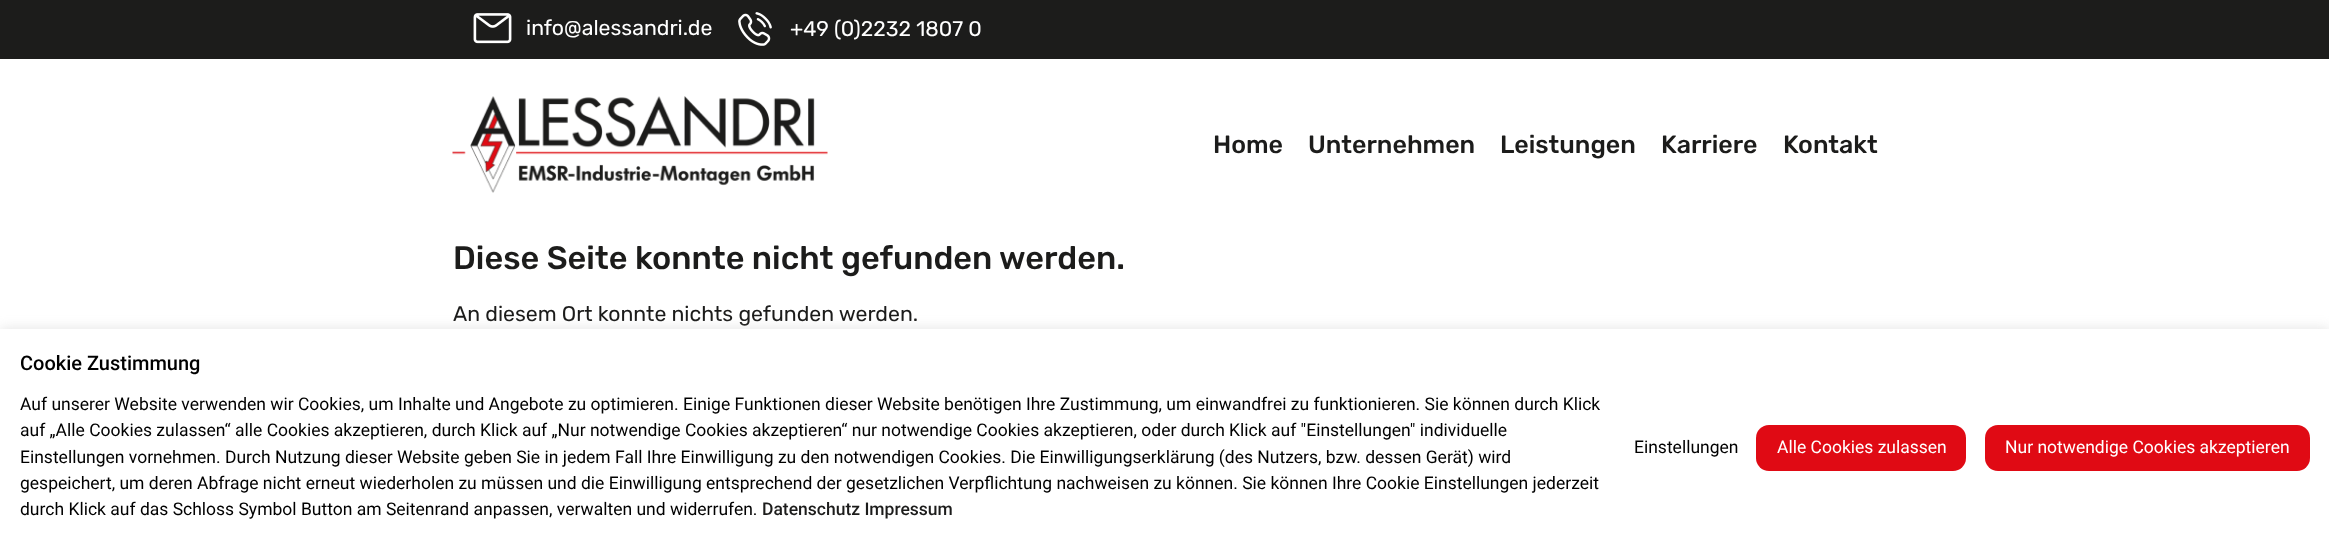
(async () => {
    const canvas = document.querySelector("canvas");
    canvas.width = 2329;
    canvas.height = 542;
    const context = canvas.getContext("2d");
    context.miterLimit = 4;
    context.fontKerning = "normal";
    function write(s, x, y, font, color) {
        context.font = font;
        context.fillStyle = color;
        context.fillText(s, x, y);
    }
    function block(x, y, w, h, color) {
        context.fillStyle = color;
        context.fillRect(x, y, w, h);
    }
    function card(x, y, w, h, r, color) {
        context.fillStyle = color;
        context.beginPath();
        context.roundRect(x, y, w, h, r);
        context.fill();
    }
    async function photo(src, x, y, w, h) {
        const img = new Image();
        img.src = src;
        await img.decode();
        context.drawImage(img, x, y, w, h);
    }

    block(0, 0, 2329, 542, "rgb(255, 255, 255)");
    block(0, 0, 2329, 59, "rgb(28, 28, 27)");
    await photo("media/1.png", 473, 13, 39, 31);
    write("info@alessandri.de", 526, 35, "21.25px Rubik", "rgb(255, 255, 255)");
    await photo("media/2.png", 738, 12, 34, 34);
    write("+49 (0)2232 1807 0", 790, 36, "21.25px Rubik", "rgb(255, 255, 255)");
    await photo("media/3.png", 452, 96, 376, 97);
    write("Home", 1213, 153, "500 25px Rubik", "rgb(28, 28, 27)");
    write("Unternehmen", 1308, 153, "500 25px Rubik", "rgb(28, 28, 27)");
    write("Leistungen", 1500, 153, "500 25px Rubik", "rgb(28, 28, 27)");
    write("Karriere", 1661, 153, "500 25px Rubik", "rgb(28, 28, 27)");
    write("Kontakt", 1783, 153, "500 25px Rubik", "rgb(28, 28, 27)");
    write("Diese Seite konnte nicht gefunden werden.", 453, 269, "500 32.5px Rubik", "rgb(28, 28, 27)");
    write("An diesem Ort konnte nichts gefunden werden.", 453, 321, "21.25px Rubik", "rgb(28, 28, 27)");
    context.fillStyle = "rgba(172, 171, 171, 0.3)";
    context.filter = "blur(6px)";
    context.beginPath();
    context.rect(0, 328, 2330, 213);
    context.fill();
    context.filter = "none";
    block(0, 329, 2329, 213, "rgb(255, 255, 255)");
    write("Cookie Zustimmung", 20, 370, "500 20px Roboto", "rgb(0, 0, 0)");
    write("Auf unserer Website verwenden wir Cookies, um Inhalte und Angebote zu optimieren. Einige Funktionen dieser Website benötigen Ihre Zustimmung, um einwandfrei zu funktionieren. Sie können durch Klick", 20, 410, "17.5px Roboto", "rgb(0, 0, 0)");
    write("auf „Alle Cookies zulassen“ alle Cookies akzeptieren, durch Klick auf „Nur notwendige Cookies akzeptieren“ nur notwendige Cookies akzeptieren, oder durch Klick auf \"Einstellungen\" individuelle", 20, 436, "17.5px Roboto", "rgb(0, 0, 0)");
    write("Einstellungen vornehmen. Durch Nutzung dieser Website geben Sie in jedem Fall Ihre Einwilligung zu den notwendigen Cookies. Die Einwilligungserklärung (des Nutzers, bzw. dessen Gerät) wird", 20, 463, "17.5px Roboto", "rgb(0, 0, 0)");
    write("gespeichert, um deren Abfrage nicht erneut wiederholen zu müssen und die Einwilligung entsprechend der gesetzlichen Verpflichtung nachweisen zu können. Sie können Ihre Cookie Einstellungen jederzeit", 20, 489, "17.5px Roboto", "rgb(0, 0, 0)");
    write("durch Klick auf das Schloss Symbol Button am Seitenrand anpassen, verwalten und widerrufen.", 20, 515, "17.5px Roboto", "rgb(0, 0, 0)");
    write("Datenschutz Impressum", 762, 515, "500 17.5px Roboto", "rgb(28, 28, 27)");
    write("Einstellungen", 1634, 453, "17.5px Roboto", "rgb(0, 0, 0)");
    card(1756, 425, 210, 46, 13, "rgb(224, 10, 20)");
    write("Alle Cookies zulassen", 1777, 453, "17.5px Roboto", "rgb(255, 255, 255)");
    card(1985, 425, 325, 46, 13, "rgb(224, 10, 20)");
    write("Nur notwendige Cookies akzeptieren", 2005, 453, "17.5px Roboto", "rgb(255, 255, 255)");
})();
